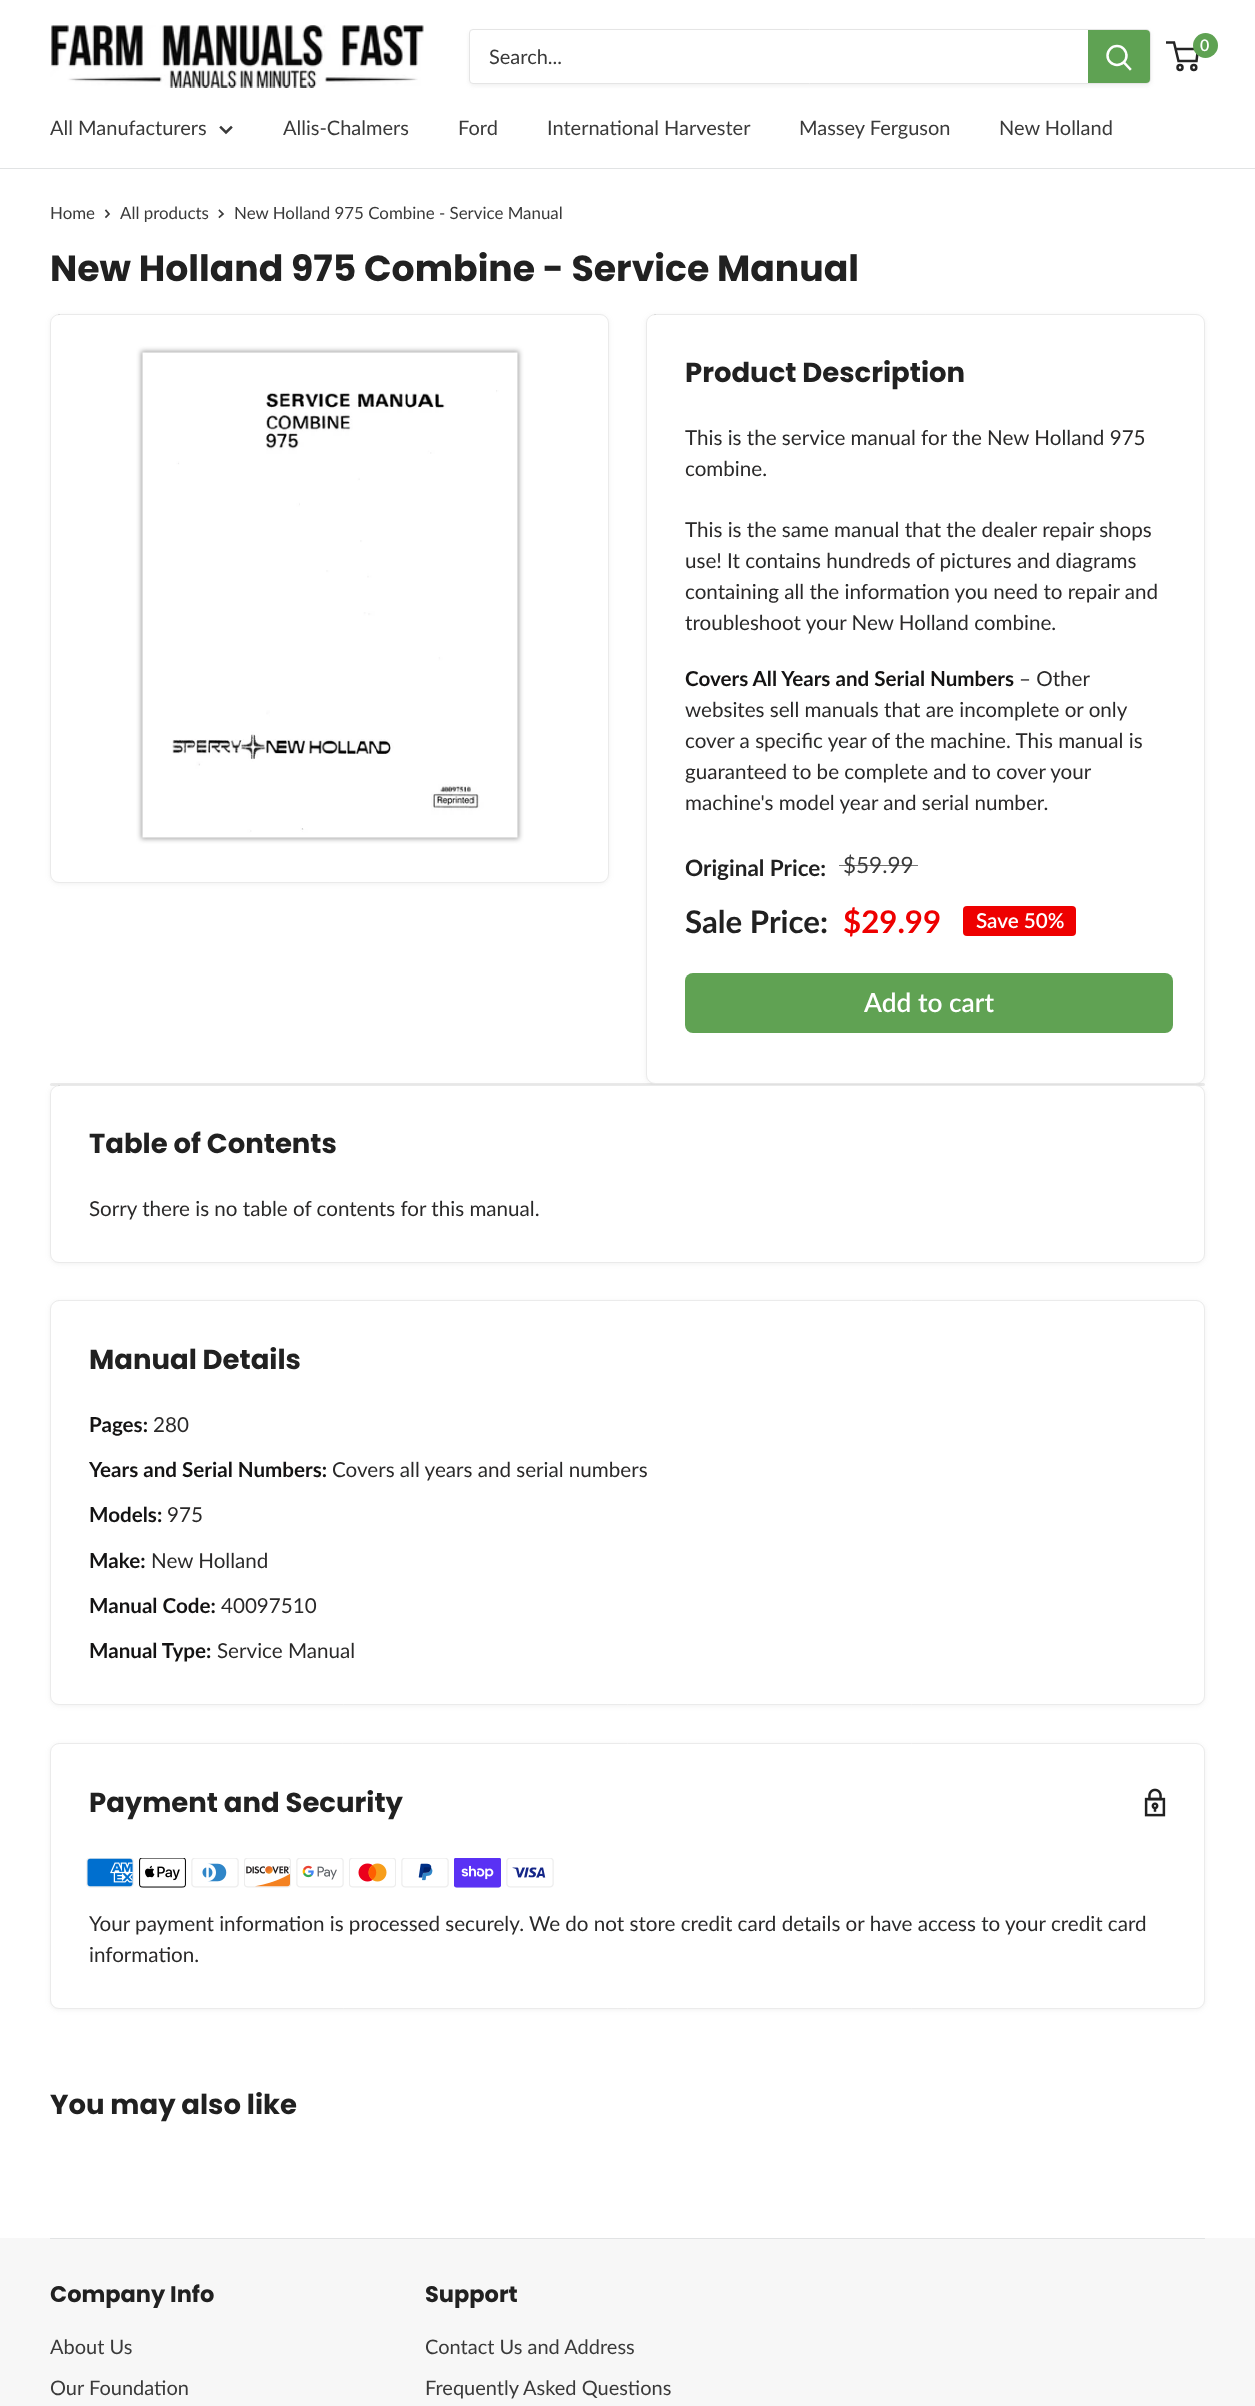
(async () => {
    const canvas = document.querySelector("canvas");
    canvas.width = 1255;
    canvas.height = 2406;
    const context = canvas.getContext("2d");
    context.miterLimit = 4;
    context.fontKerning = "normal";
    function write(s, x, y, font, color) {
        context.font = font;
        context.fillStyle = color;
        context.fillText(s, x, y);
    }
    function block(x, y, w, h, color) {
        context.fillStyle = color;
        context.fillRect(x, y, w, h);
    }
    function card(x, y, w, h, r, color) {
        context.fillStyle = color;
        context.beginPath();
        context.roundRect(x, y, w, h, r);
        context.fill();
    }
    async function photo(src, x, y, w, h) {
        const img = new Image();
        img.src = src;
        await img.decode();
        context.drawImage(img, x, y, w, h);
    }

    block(0, 0, 1255, 2406, "rgb(255, 255, 255)");
    await photo("media/1.png", 50, 25, 374, 63);
    context.beginPath();
    context.arc(1180, 67.5, 2.5, 0, Math.PI * 2);
    context.strokeStyle = "rgb(36, 36, 36)";
    context.lineWidth = 2.5;
    context.stroke();
    context.beginPath();
    context.arc(1193.8, 67.5, 2.5, 0, Math.PI * 2);
    context.stroke();
    context.beginPath();
    context.moveTo(1175.5, 49);
    context.lineTo(1198, 49);
    context.lineTo(1196.5, 61);
    context.lineTo(1178.5, 61);
    context.lineTo(1174, 42.5);
    context.lineTo(1166, 42.5);
    context.stroke();
    context.fillStyle = "rgb(95, 162, 83)";
    context.beginPath();
    context.arc(1205.5, 45.5, 12.5, 0, Math.PI * 2);
    context.fill();
    write("0", 1200, 51, "600 16px Lato", "rgb(255, 255, 255)");
    context.fillStyle = "rgba(127, 127, 127, 0.11)";
    context.filter = "blur(2px)";
    context.beginPath();
    context.roundRect(469, 31, 682, 55, 5);
    context.fill();
    context.filter = "none";
    context.fillStyle = "rgb(255, 255, 255)";
    context.beginPath();
    context.roundRect(469.5, 29.5, 681, 54, [3.5, 4.5, 4.5, 3.5]);
    context.fill();
    context.strokeStyle = "rgb(229, 229, 229)";
    context.lineWidth = 1;
    context.stroke();
    write("Search...", 489, 64, "20px Lato", "rgb(58, 58, 58)");
    context.fillStyle = "rgb(95, 162, 83)";
    context.beginPath();
    context.roundRect(1088, 30, 62, 53, [0, 4, 4, 0]);
    context.fill();
    context.beginPath();
    context.moveTo(1130, 69);
    context.lineTo(1124, 62.5);
    context.strokeStyle = "rgb(255, 255, 255)";
    context.lineWidth = 2.5;
    context.lineCap = "square";
    context.stroke();
    context.beginPath();
    context.arc(1117, 55.5, 9.5, 0, Math.PI * 2);
    context.stroke();
    block(0, 168, 1255, 1, "rgb(225, 227, 228)");
    write("All Manufacturers", 50, 135, "20px Lato", "rgb(58, 58, 58)");
    context.beginPath();
    context.moveTo(231, 127.5);
    context.lineTo(226, 132.5);
    context.lineTo(221, 127.5);
    context.strokeStyle = "rgb(58, 58, 58)";
    context.stroke();
    write("Allis-Chalmers", 283, 135, "20px Lato", "rgb(58, 58, 58)");
    write("Ford", 458, 135, "20px Lato", "rgb(58, 58, 58)");
    write("International Harvester", 547, 135, "20px Lato", "rgb(58, 58, 58)");
    write("Massey Ferguson", 799, 135, "20px Lato", "rgb(58, 58, 58)");
    write("New Holland", 999, 135, "20px Lato", "rgb(58, 58, 58)");
    write("Home", 50, 219, "16.9px Lato", "rgb(58, 58, 58)");
    context.beginPath();
    context.moveTo(106, 210.5);
    context.lineTo(109, 214);
    context.lineTo(106, 217);
    context.lineWidth = 1.7;
    context.stroke();
    write("All products", 120, 219, "16.9px Lato", "rgb(58, 58, 58)");
    context.beginPath();
    context.moveTo(219.5, 210.5);
    context.lineTo(223, 214);
    context.lineTo(219.5, 217);
    context.stroke();
    write("New Holland 975 Combine - Service Manual", 234, 219, "16.9px Lato", "rgb(58, 58, 58)");
    write("New Holland 975 Combine - Service Manual", 50, 281, "bold 36.25px Poppins", "rgb(33, 33, 33)");
    context.fillStyle = "rgba(127, 127, 127, 0.11)";
    context.filter = "blur(2.5px)";
    context.beginPath();
    context.roundRect(50, 315, 559, 569, 9);
    context.fill();
    context.filter = "none";
    card(50, 314, 559, 569, 9, "rgb(255, 255, 255)");
    context.beginPath();
    context.roundRect(50.5, 314.5, 558, 568, 8.5);
    context.strokeStyle = "rgba(127, 127, 127, 0.16)";
    context.lineWidth = 1;
    context.stroke();
    context.fillStyle = "rgba(127, 127, 127, 0.69)";
    context.filter = "blur(2.5px)";
    context.beginPath();
    context.rect(141, 351, 378, 488);
    context.fill();
    context.filter = "none";
    await photo("media/2.png", 142, 352, 376, 486);
    card(50, 1083, 1155, 3, 1.5, "rgb(235, 235, 235)");
    context.fillStyle = "rgba(127, 127, 127, 0.11)";
    context.filter = "blur(2.5px)";
    context.beginPath();
    context.roundRect(646, 315, 559, 770, 9);
    context.fill();
    context.filter = "none";
    card(646, 314, 559, 770, 9, "rgb(255, 255, 255)");
    context.beginPath();
    context.roundRect(646.5, 314.5, 558, 769, 8.5);
    context.stroke();
    write("Product Description", 685, 382, "bold 27.5px Poppins", "rgb(33, 33, 33)");
    write("This is the service manual for the New Holland 975", 685, 445, "20.62px Lato", "rgb(42, 41, 41)");
    write("combine.", 685, 476, "20.62px Lato", "rgb(42, 41, 41)");
    write("This is the same manual that the dealer repair shops", 685, 537, "20.62px Lato", "rgb(42, 41, 41)");
    write("use! It contains hundreds of pictures and diagrams", 685, 568, "20.62px Lato", "rgb(42, 41, 41)");
    write("containing all the information you need to repair and", 685, 599, "20.62px Lato", "rgb(42, 41, 41)");
    write("troubleshoot your New Holland combine.", 685, 630, "20.62px Lato", "rgb(42, 41, 41)");
    write("Covers All Years and Serial Numbers", 685, 686, "bold 20.62px Lato", "rgb(20, 19, 19)");
    write("– Other", 1019, 686, "20.62px Lato", "rgb(42, 41, 41)");
    write("websites sell manuals that are incomplete or only", 685, 717, "20.62px Lato", "rgb(42, 41, 41)");
    write("cover a specific year of the machine. This manual is", 685, 748, "20.62px Lato", "rgb(42, 41, 41)");
    write("guaranteed to be complete and to cover your", 685, 779, "20.62px Lato", "rgb(42, 41, 41)");
    write("machine's model year and serial number.", 685, 810, "20.62px Lato", "rgb(42, 41, 41)");
    write("Original Price:", 685, 876, "bold 22.5px Lato", "rgb(33, 33, 33)");
    write("$59.99", 843, 873, "22.5px Lato", "rgb(58, 58, 58)");
    block(839, 865, 79, 1, "rgba(58, 58, 58, 0.7)");
    write("Sale Price:", 685, 933, "bold 31.25px Lato", "rgb(33, 33, 33)");
    write("$29.99", 843, 933, "bold 31.25px Lato", "rgb(238, 0, 0)");
    card(963, 906, 113, 30, 4, "rgb(238, 0, 0)");
    write("Save 50%", 976, 928, "600 20.62px Lato", "rgb(255, 255, 255)");
    card(685, 973, 488, 60, 8, "rgb(96, 162, 83)");
    write("Add to cart", 864, 1012, "600 26.25px Lato", "rgb(255, 255, 255)");
    context.fillStyle = "rgba(127, 127, 127, 0.11)";
    context.filter = "blur(2.5px)";
    context.beginPath();
    context.roundRect(50, 1086, 1155, 178, 9);
    context.fill();
    context.filter = "none";
    card(50, 1085, 1155, 178, 9, "rgb(255, 255, 255)");
    context.beginPath();
    context.roundRect(50.5, 1085.5, 1154, 177, 8.5);
    context.stroke();
    write("Table of Contents", 89, 1153, "bold 27.5px Poppins", "rgb(33, 33, 33)");
    write("Sorry there is no table of contents for this manual.", 89, 1216, "20.62px Lato", "rgb(42, 41, 41)");
    context.fillStyle = "rgba(127, 127, 127, 0.11)";
    context.filter = "blur(2.5px)";
    context.beginPath();
    context.roundRect(50, 1301, 1155, 405, 9);
    context.fill();
    context.filter = "none";
    context.fillStyle = "rgb(255, 255, 255)";
    context.beginPath();
    context.roundRect(50.5, 1300.5, 1154, 404, 8.5);
    context.fill();
    context.strokeStyle = "rgb(235, 235, 235)";
    context.stroke();
    write("Manual Details", 89, 1369, "bold 27.5px Poppins", "rgb(33, 33, 33)");
    write("Pages:", 89, 1432, "bold 20.62px Lato", "rgb(20, 19, 19)");
    write("280", 153, 1432, "20.62px Lato", "rgb(42, 41, 41)");
    write("Years and Serial Numbers:", 89, 1477, "bold 20.62px Lato", "rgb(20, 19, 19)");
    write("Covers all years and serial numbers", 332, 1477, "20.62px Lato", "rgb(42, 41, 41)");
    write("Models:", 89, 1522, "bold 20.62px Lato", "rgb(20, 19, 19)");
    write("975", 167, 1522, "20.62px Lato", "rgb(42, 41, 41)");
    write("Make:", 89, 1568, "bold 20.62px Lato", "rgb(20, 19, 19)");
    write("New Holland", 151, 1568, "20.62px Lato", "rgb(42, 41, 41)");
    write("Manual Code:", 89, 1613, "bold 20.62px Lato", "rgb(20, 19, 19)");
    write("40097510", 221, 1613, "20.62px Lato", "rgb(42, 41, 41)");
    write("Manual Type:", 89, 1658, "bold 20.62px Lato", "rgb(20, 19, 19)");
    write("Service Manual", 217, 1658, "20.62px Lato", "rgb(42, 41, 41)");
    context.fillStyle = "rgba(127, 127, 127, 0.11)";
    context.filter = "blur(2.5px)";
    context.beginPath();
    context.roundRect(50, 1744, 1155, 266, 9);
    context.fill();
    context.filter = "none";
    context.fillStyle = "rgb(255, 255, 255)";
    context.beginPath();
    context.roundRect(50.5, 1743.5, 1154, 265, 8.5);
    context.fill();
    context.stroke();
    write("Payment and Security", 89, 1812, "bold 27.5px Poppins", "rgb(33, 33, 33)");
    await photo("media/3.png", 1144, 1788, 22, 29);
    await photo("media/4.png", 86, 1858, 48, 30);
    await photo("media/5.png", 139, 1858, 47, 30);
    await photo("media/6.png", 191, 1858, 48, 30);
    await photo("media/7.png", 244, 1858, 47, 30);
    await photo("media/8.png", 296, 1858, 48, 30);
    await photo("media/9.png", 349, 1858, 47, 30);
    await photo("media/10.png", 401, 1858, 48, 30);
    await photo("media/11.png", 454, 1858, 47, 30);
    await photo("media/12.png", 506, 1858, 48, 30);
    write("Your payment information is processed securely. We do not store credit card details or have access to your credit card", 89, 1931, "20.62px Lato", "rgb(42, 41, 41)");
    write("information.", 89, 1962, "20.62px Lato", "rgb(42, 41, 41)");
    write("You may also like", 50, 2114, "bold 27.5px Poppins", "rgb(33, 33, 33)");
    block(0, 2238, 1255, 168, "rgb(247, 247, 247)");
    block(50, 2238, 1155, 1, "rgb(225, 227, 228)");
    write("Company Info", 50, 2302, "bold 22.5px Poppins", "rgb(33, 33, 33)");
    write("About Us", 50, 2354, "20px Lato", "rgb(58, 58, 58)");
    write("Our Foundation", 50, 2395, "20px Lato", "rgb(58, 58, 58)");
    write("Support", 425, 2302, "bold 22.5px Poppins", "rgb(33, 33, 33)");
    write("Contact Us and Address", 425, 2354, "20px Lato", "rgb(58, 58, 58)");
    write("Frequently Asked Questions", 425, 2395, "20px Lato", "rgb(58, 58, 58)");
})();
